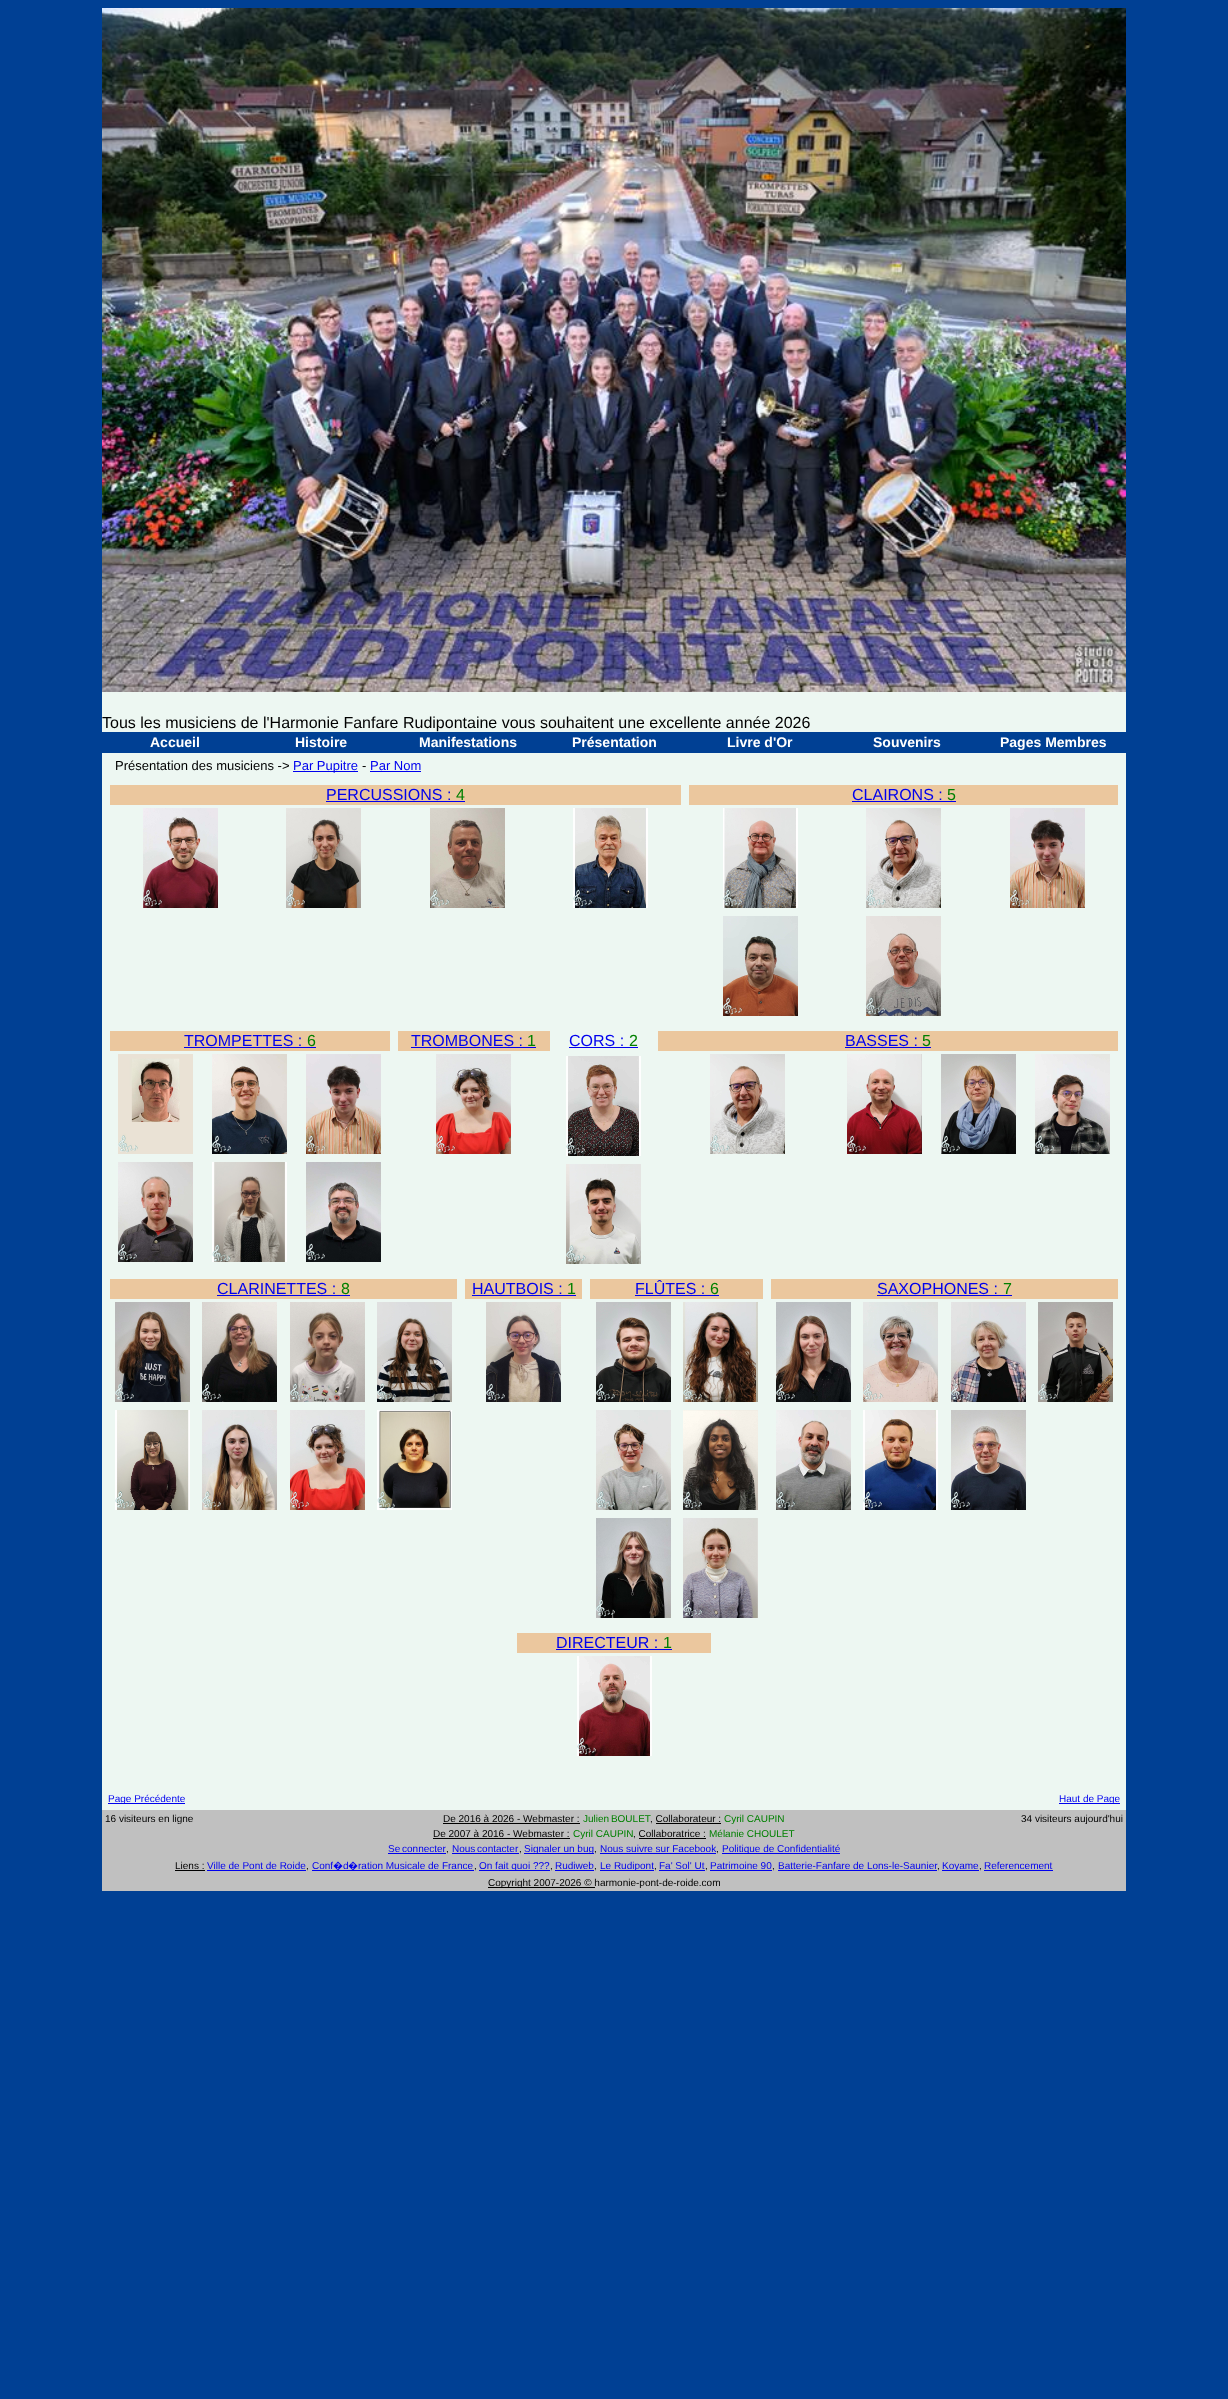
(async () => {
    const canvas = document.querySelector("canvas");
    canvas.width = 1228;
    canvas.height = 2399;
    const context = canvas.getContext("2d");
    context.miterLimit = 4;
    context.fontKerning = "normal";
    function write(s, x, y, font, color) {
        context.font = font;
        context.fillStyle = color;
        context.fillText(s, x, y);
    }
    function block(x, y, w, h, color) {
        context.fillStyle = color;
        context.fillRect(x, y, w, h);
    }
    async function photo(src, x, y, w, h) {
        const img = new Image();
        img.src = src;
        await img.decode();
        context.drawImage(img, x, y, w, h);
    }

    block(0, 0, 1228, 2399, "rgb(0, 64, 148)");
    block(102, 692, 1024, 1118, "rgb(237, 247, 242)");
    await photo("media/1.png", 102, 8, 1024, 684);
    write("Tous les musiciens de l'Harmonie Fanfare Rudipontaine vous souhaitent une excellente année 2026", 102, 728, "16px Liberation Sans", "rgb(0, 0, 0)");
    block(102, 732, 1024, 21, "rgb(0, 64, 148)");
    write("Accueil", 150, 747, "bold 14px Liberation Sans", "rgb(255, 255, 255)");
    write("Histoire", 295, 747, "bold 14px Liberation Sans", "rgb(255, 255, 255)");
    write("Manifestations", 419, 747, "bold 14px Liberation Sans", "rgb(255, 255, 255)");
    write("Présentation", 572, 747, "bold 14px Liberation Sans", "rgb(255, 255, 255)");
    write("Livre d'Or", 727, 747, "bold 14px Liberation Sans", "rgb(255, 255, 255)");
    write("Souvenirs", 873, 747, "bold 14px Liberation Sans", "rgb(255, 255, 255)");
    write("Pages Membres", 1000, 747, "bold 14px Liberation Sans", "rgb(255, 255, 255)");
    write("Présentation des musiciens ->", 115, 770, "13px Liberation Sans", "rgb(0, 0, 0)");
    block(293, 771, 65, 1, "rgb(0, 0, 238)");
    write("Par Pupitre", 293, 770, "13px Liberation Sans", "rgb(0, 0, 238)");
    write("-", 362, 770, "13px Liberation Sans", "rgb(0, 0, 0)");
    write("Par Nom", 370, 770, "13px Liberation Sans", "rgb(0, 0, 238)");
    block(370, 771, 51, 1, "rgb(0, 0, 238)");
    block(110, 785, 571, 20, "rgb(235, 199, 158)");
    write("PERCUSSIONS :", 326, 800, "16px Liberation Sans", "rgb(0, 0, 238)");
    block(326, 801, 139, 1, "rgb(0, 0, 238)");
    write("4", 456, 800, "16px Liberation Sans", "rgb(0, 128, 0)");
    await photo("media/2.png", 143, 808, 75, 100);
    await photo("media/3.png", 286, 808, 75, 100);
    await photo("media/4.png", 430, 808, 75, 100);
    await photo("media/5.png", 573, 808, 75, 100);
    block(689, 785, 429, 20, "rgb(235, 199, 158)");
    write("CLAIRONS :", 852, 800, "16px Liberation Sans", "rgb(0, 0, 238)");
    write("5", 947, 800, "16px Liberation Sans", "rgb(0, 128, 0)");
    block(852, 801, 104, 1, "rgb(0, 0, 238)");
    await photo("media/6.png", 723, 808, 75, 100);
    await photo("media/7.png", 866, 808, 75, 100);
    await photo("media/8.png", 1010, 808, 75, 100);
    await photo("media/9.png", 723, 916, 75, 100);
    await photo("media/10.png", 866, 916, 75, 100);
    block(110, 1031, 280, 20, "rgb(235, 199, 158)");
    write("TROMPETTES :", 184, 1046, "16px Liberation Sans", "rgb(0, 0, 238)");
    block(184, 1047, 132, 1, "rgb(0, 0, 238)");
    write("6", 307, 1046, "16px Liberation Sans", "rgb(0, 128, 0)");
    await photo("media/11.png", 118, 1054, 75, 100);
    await photo("media/12.png", 212, 1054, 75, 100);
    await photo("media/8.png", 306, 1054, 75, 100);
    await photo("media/13.png", 118, 1162, 75, 100);
    await photo("media/14.png", 212, 1162, 75, 100);
    await photo("media/15.png", 306, 1162, 75, 100);
    block(398, 1031, 152, 20, "rgb(235, 199, 158)");
    write("TROMBONES :", 411, 1046, "16px Liberation Sans", "rgb(0, 0, 238)");
    block(411, 1047, 125, 1, "rgb(0, 0, 238)");
    write("1", 527, 1046, "16px Liberation Sans", "rgb(0, 128, 0)");
    await photo("media/16.png", 436, 1054, 75, 100);
    write("CORS :", 569, 1046, "16px Liberation Sans", "rgb(0, 0, 238)");
    block(569, 1047, 69, 1, "rgb(0, 0, 238)");
    write("2", 629, 1046, "16px Liberation Sans", "rgb(0, 128, 0)");
    await photo("media/17.png", 566, 1056, 75, 100);
    await photo("media/18.png", 566, 1164, 75, 100);
    block(658, 1031, 460, 20, "rgb(235, 199, 158)");
    write("BASSES :", 845, 1046, "16px Liberation Sans", "rgb(0, 0, 238)");
    write("5", 922, 1046, "16px Liberation Sans", "rgb(0, 128, 0)");
    block(845, 1047, 86, 1, "rgb(0, 0, 238)");
    await photo("media/7.png", 710, 1054, 75, 100);
    await photo("media/19.png", 847, 1054, 75, 100);
    await photo("media/20.png", 941, 1054, 75, 100);
    await photo("media/21.png", 1035, 1054, 75, 100);
    block(110, 1279, 347, 20, "rgb(235, 199, 158)");
    write("CLARINETTES :", 217, 1294, "16px Liberation Sans", "rgb(0, 0, 238)");
    block(217, 1295, 133, 1, "rgb(0, 0, 238)");
    write("8", 341, 1294, "16px Liberation Sans", "rgb(0, 128, 0)");
    await photo("media/22.png", 115, 1302, 75, 100);
    await photo("media/23.png", 202, 1302, 75, 100);
    await photo("media/24.png", 290, 1302, 75, 100);
    await photo("media/25.png", 377, 1302, 75, 100);
    await photo("media/26.png", 115, 1410, 75, 100);
    await photo("media/27.png", 202, 1410, 75, 100);
    await photo("media/16.png", 290, 1410, 75, 100);
    await photo("media/28.png", 377, 1410, 75, 100);
    block(465, 1279, 117, 20, "rgb(235, 199, 158)");
    write("HAUTBOIS :", 472, 1294, "16px Liberation Sans", "rgb(0, 0, 238)");
    block(472, 1295, 104, 1, "rgb(0, 0, 238)");
    write("1", 567, 1294, "16px Liberation Sans", "rgb(0, 128, 0)");
    await photo("media/29.png", 486, 1302, 75, 100);
    block(590, 1279, 173, 20, "rgb(235, 199, 158)");
    write("FLÛTES :", 635, 1294, "16px Liberation Sans", "rgb(0, 0, 238)");
    write("6", 710, 1294, "16px Liberation Sans", "rgb(0, 128, 0)");
    block(635, 1295, 84, 1, "rgb(0, 0, 238)");
    await photo("media/30.png", 596, 1302, 75, 100);
    await photo("media/31.png", 683, 1302, 75, 100);
    await photo("media/32.png", 596, 1410, 75, 100);
    await photo("media/33.png", 683, 1410, 75, 100);
    await photo("media/34.png", 596, 1518, 75, 100);
    await photo("media/35.png", 683, 1518, 75, 100);
    block(771, 1279, 347, 20, "rgb(235, 199, 158)");
    write("SAXOPHONES :", 877, 1294, "16px Liberation Sans", "rgb(0, 0, 238)");
    block(877, 1295, 135, 1, "rgb(0, 0, 238)");
    write("7", 1003, 1294, "16px Liberation Sans", "rgb(0, 128, 0)");
    await photo("media/36.png", 776, 1302, 75, 100);
    await photo("media/37.png", 863, 1302, 75, 100);
    await photo("media/38.png", 951, 1302, 75, 100);
    await photo("media/39.png", 1038, 1302, 75, 100);
    await photo("media/40.png", 776, 1410, 75, 100);
    await photo("media/41.png", 863, 1410, 75, 100);
    await photo("media/42.png", 951, 1410, 75, 100);
    block(517, 1633, 194, 20, "rgb(235, 199, 158)");
    write("DIRECTEUR :", 556, 1648, "16px Liberation Sans", "rgb(0, 0, 238)");
    block(556, 1649, 116, 1, "rgb(0, 0, 238)");
    write("1", 663, 1648, "16px Liberation Sans", "rgb(0, 128, 0)");
    await photo("media/43.png", 577, 1656, 75, 100);
    block(108, 1803, 77, 1, "rgb(0, 0, 238)");
    write("Page Précédente", 108, 1802, "10px Liberation Sans", "rgb(0, 0, 238)");
    block(1059, 1803, 61, 1, "rgb(0, 0, 238)");
    write("Haut de Page", 1059, 1802, "10px Liberation Sans", "rgb(0, 0, 238)");
    block(102, 1810, 1024, 81, "rgb(192, 192, 192)");
    write("16 visiteurs en ligne", 105, 1822, "10px Liberation Sans", "rgb(0, 0, 0)");
    write("De 2016 à 2026 - Webmaster :", 443, 1822, "10px Liberation Sans", "rgb(0, 0, 0)");
    block(443, 1823, 137, 1, "rgb(0, 0, 0)");
    context.wordSpacing = "-1px";
    write("Julien BOULET", 583, 1822, "10px Liberation Sans", "rgb(0, 128, 0)");
    context.wordSpacing = "0px";
    write(", Collaborateur :", 650, 1822, "10px Liberation Sans", "rgb(0, 0, 0)");
    write("Cyril CAUPIN", 724, 1822, "10px Liberation Sans", "rgb(0, 128, 0)");
    block(656, 1823, 65, 1, "rgb(0, 0, 0)");
    write("34 visiteurs aujourd'hui", 1021, 1822, "10px Liberation Sans", "rgb(0, 0, 0)");
    write("De 2007 à 2016 - Webmaster :", 433, 1837, "10px Liberation Sans", "rgb(0, 0, 0)");
    block(433, 1838, 137, 1, "rgb(0, 0, 0)");
    write("Cyril CAUPIN", 573, 1837, "10px Liberation Sans", "rgb(0, 128, 0)");
    write(", Collaboratrice :", 633, 1837, "10px Liberation Sans", "rgb(0, 0, 0)");
    write("Mélanie CHOULET", 709, 1837, "10px Liberation Sans", "rgb(0, 128, 0)");
    block(639, 1838, 67, 1, "rgb(0, 0, 0)");
    context.wordSpacing = "-1px";
    write("Se connecter", 388, 1852, "10px Liberation Sans", "rgb(0, 0, 238)");
    block(388, 1853, 58, 1, "rgb(0, 0, 238)");
    context.wordSpacing = "0px";
    write(",", 446, 1852, "10px Liberation Sans", "rgb(0, 0, 0)");
    context.wordSpacing = "-1px";
    write("Nous contacter", 452, 1852, "10px Liberation Sans", "rgb(0, 0, 238)");
    block(452, 1853, 67, 1, "rgb(0, 0, 238)");
    context.wordSpacing = "0px";
    write(",", 519, 1852, "10px Liberation Sans", "rgb(0, 0, 0)");
    block(524, 1853, 70, 1, "rgb(0, 0, 238)");
    write("Signaler un bug", 524, 1852, "10px Liberation Sans", "rgb(0, 0, 238)");
    write(",", 594, 1852, "10px Liberation Sans", "rgb(0, 0, 0)");
    write("Nous suivre sur Facebook", 600, 1852, "10px Liberation Sans", "rgb(0, 0, 238)");
    block(600, 1853, 116, 1, "rgb(0, 0, 238)");
    write(",", 716, 1852, "10px Liberation Sans", "rgb(0, 0, 0)");
    block(722, 1853, 118, 1, "rgb(0, 0, 238)");
    write("Politique de Confidentialité", 722, 1852, "10px Liberation Sans", "rgb(0, 0, 238)");
    write("Liens :", 175, 1869, "10px Liberation Sans", "rgb(0, 0, 0)");
    block(175, 1870, 30, 1, "rgb(0, 0, 0)");
    write("Ville de Pont de Roide", 207, 1869, "10px Liberation Sans", "rgb(0, 0, 238)");
    block(207, 1870, 99, 1, "rgb(0, 0, 238)");
    write(",", 306, 1869, "10px Liberation Sans", "rgb(0, 0, 0)");
    write("Conf", 312, 1869, "10px Liberation Sans", "rgb(0, 0, 238)");
    block(312, 1870, 162, 1, "rgb(0, 0, 238)");
    write("�", 333, 1869, "10px Noto Sans", "rgb(0, 0, 238)");
    write("d", 343, 1869, "10px Liberation Sans", "rgb(0, 0, 238)");
    write("�", 348, 1869, "10px Noto Sans", "rgb(0, 0, 238)");
    write("ration Musicale de France", 358, 1869, "10px Liberation Sans", "rgb(0, 0, 238)");
    write(",", 474, 1869, "10px Liberation Sans", "rgb(0, 0, 0)");
    block(479, 1870, 71, 1, "rgb(0, 0, 238)");
    write("On fait quoi ???", 479, 1869, "10px Liberation Sans", "rgb(0, 0, 238)");
    write(",", 550, 1869, "10px Liberation Sans", "rgb(0, 0, 0)");
    write("Rudiweb", 555, 1869, "10px Liberation Sans", "rgb(0, 0, 238)");
    block(555, 1870, 39, 1, "rgb(0, 0, 238)");
    write(",", 594, 1869, "10px Liberation Sans", "rgb(0, 0, 0)");
    block(600, 1870, 54, 1, "rgb(0, 0, 238)");
    write("Le Rudipont", 600, 1869, "10px Liberation Sans", "rgb(0, 0, 238)");
    write(",", 654, 1869, "10px Liberation Sans", "rgb(0, 0, 0)");
    write("Fa' Sol' Ut", 659, 1869, "10px Liberation Sans", "rgb(0, 0, 238)");
    block(659, 1870, 46, 1, "rgb(0, 0, 238)");
    write(",", 705, 1869, "10px Liberation Sans", "rgb(0, 0, 0)");
    write("Patrimoine 90", 710, 1869, "10px Liberation Sans", "rgb(0, 0, 238)");
    block(710, 1870, 62, 1, "rgb(0, 0, 238)");
    write(",", 772, 1869, "10px Liberation Sans", "rgb(0, 0, 0)");
    write("Batterie-Fanfare de Lons-le-Saunier", 778, 1869, "10px Liberation Sans", "rgb(0, 0, 238)");
    block(778, 1870, 159, 1, "rgb(0, 0, 238)");
    write(",", 937, 1869, "10px Liberation Sans", "rgb(0, 0, 0)");
    block(942, 1870, 37, 1, "rgb(0, 0, 238)");
    write("Koyame", 942, 1869, "10px Liberation Sans", "rgb(0, 0, 238)");
    write(",", 979, 1869, "10px Liberation Sans", "rgb(0, 0, 0)");
    write("Referencement", 984, 1869, "10px Liberation Sans", "rgb(0, 0, 238)");
    block(984, 1870, 69, 1, "rgb(0, 0, 238)");
    block(488, 1887, 107, 1, "rgb(0, 0, 0)");
    write("Copyright 2007-2026 © harmonie-pont-de-roide.com", 488, 1886, "10px Liberation Sans", "rgb(0, 0, 0)");
})();
